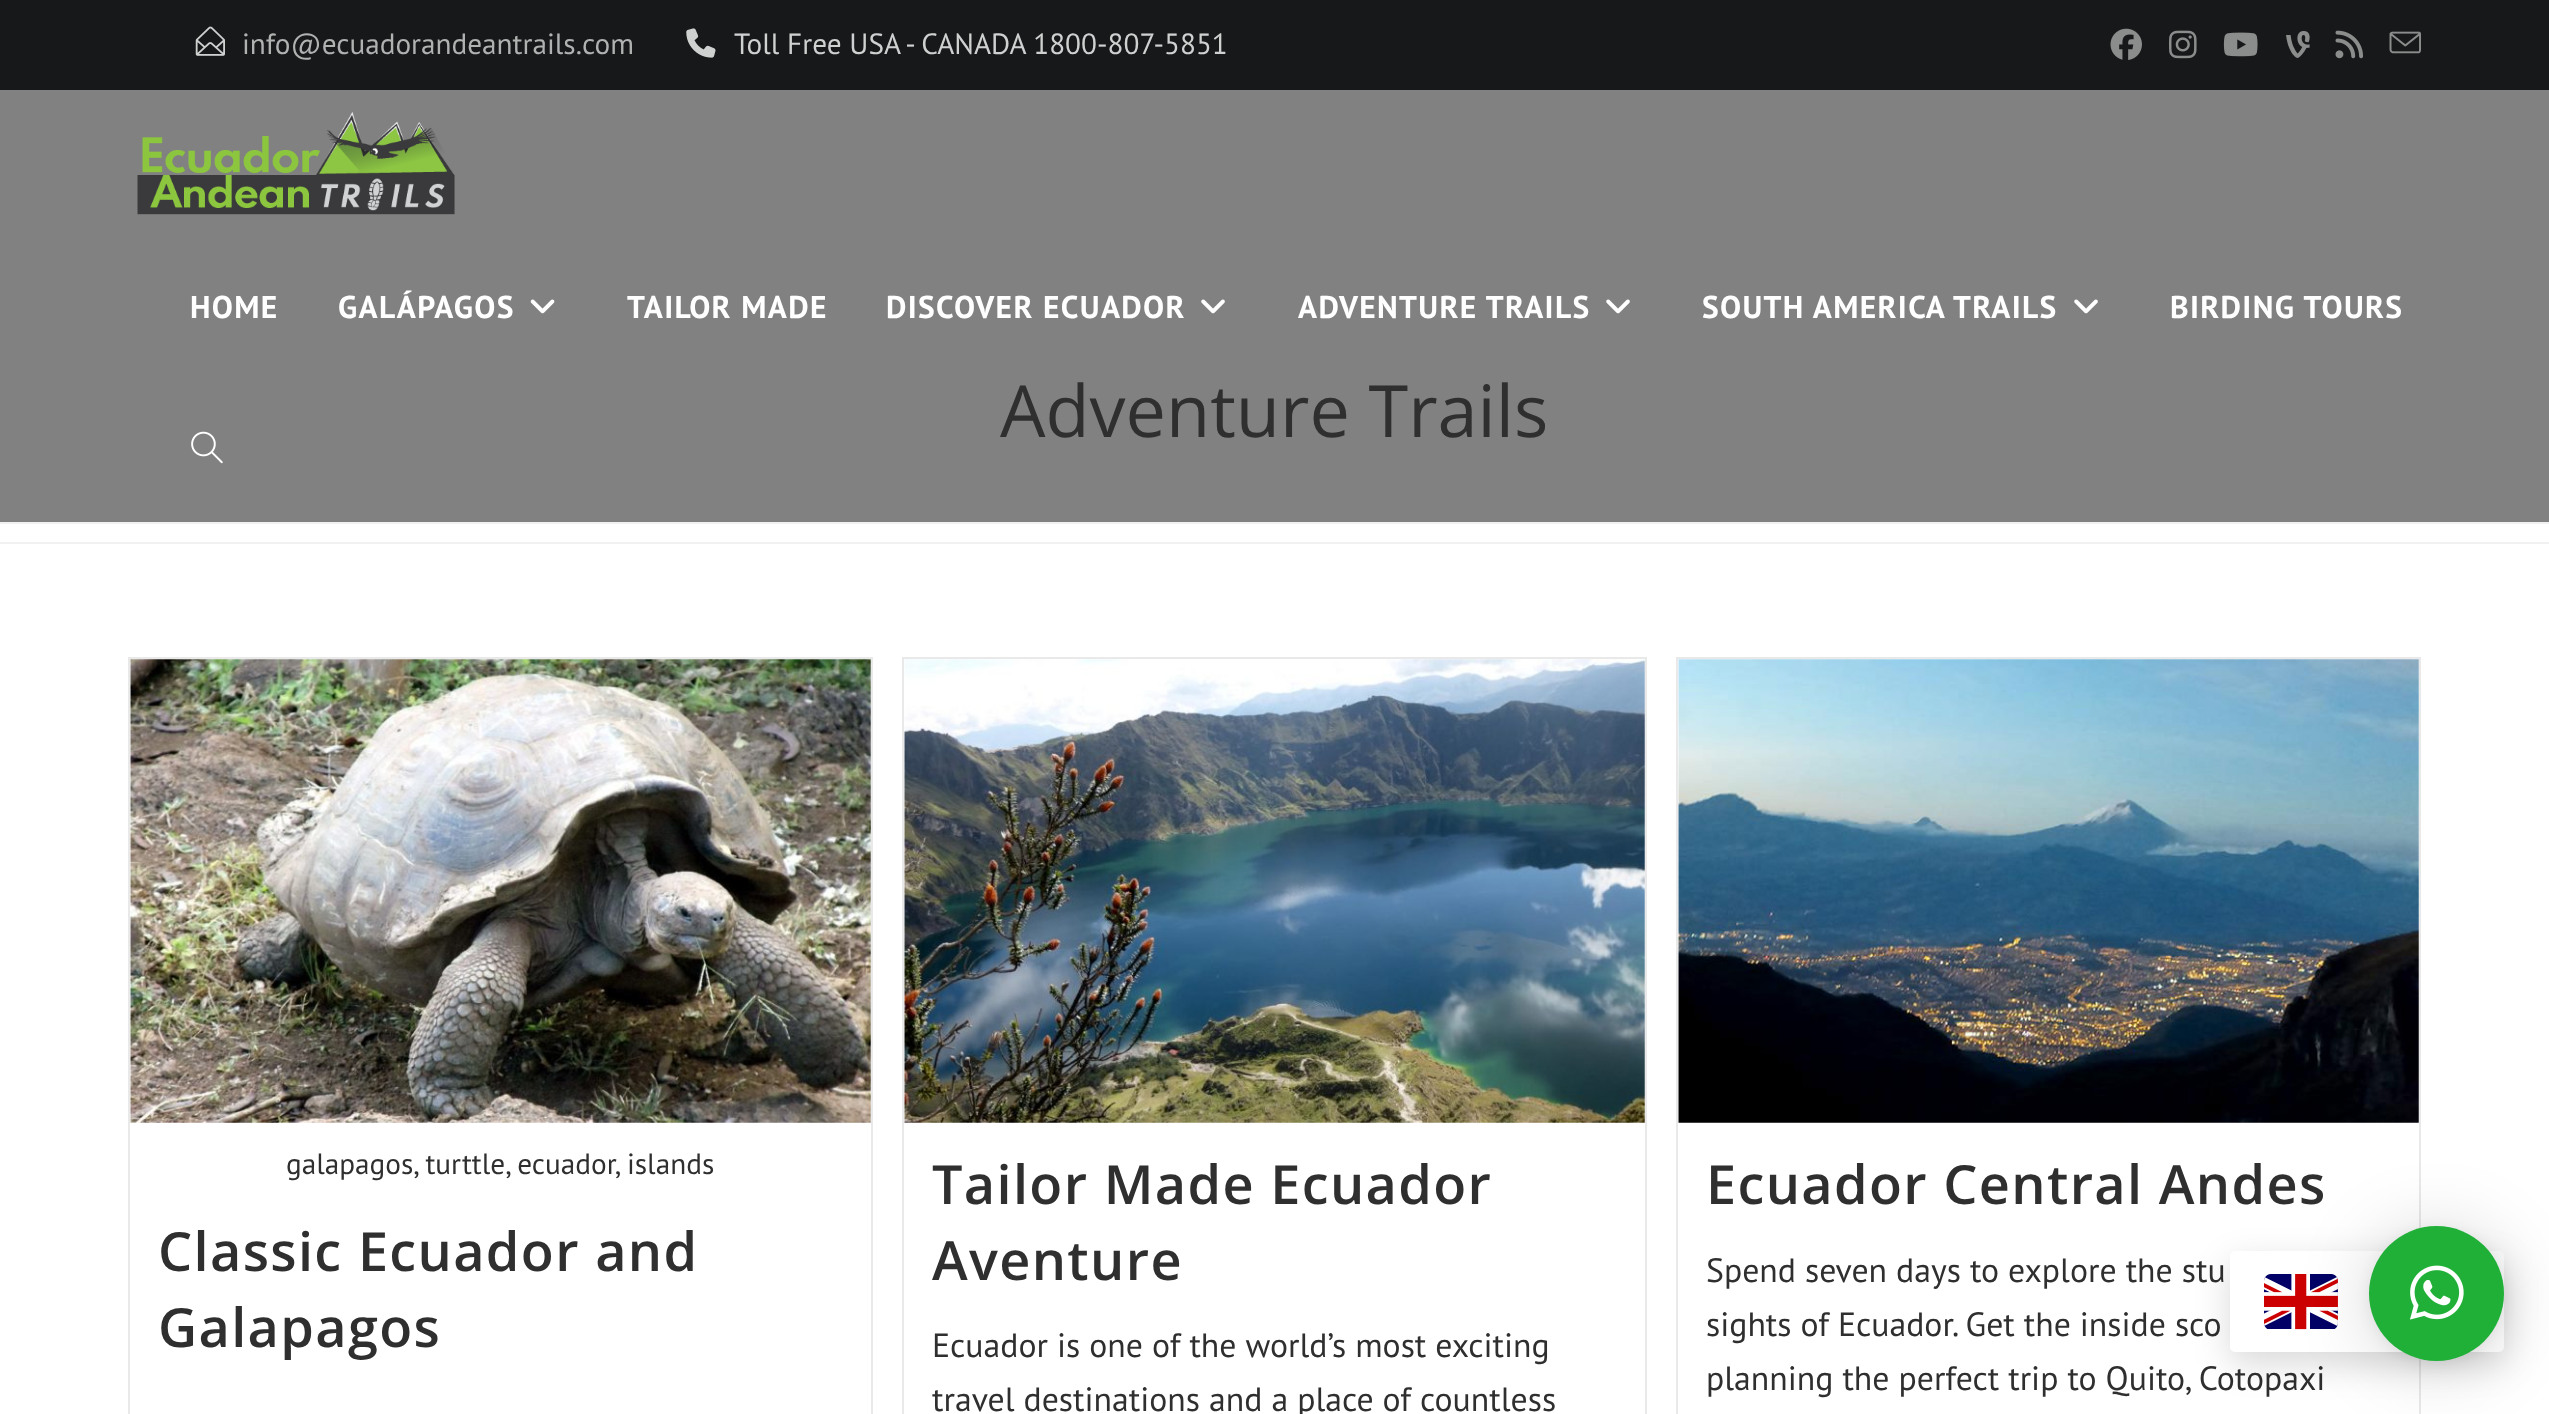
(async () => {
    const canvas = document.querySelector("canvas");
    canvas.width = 2549;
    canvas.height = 1414;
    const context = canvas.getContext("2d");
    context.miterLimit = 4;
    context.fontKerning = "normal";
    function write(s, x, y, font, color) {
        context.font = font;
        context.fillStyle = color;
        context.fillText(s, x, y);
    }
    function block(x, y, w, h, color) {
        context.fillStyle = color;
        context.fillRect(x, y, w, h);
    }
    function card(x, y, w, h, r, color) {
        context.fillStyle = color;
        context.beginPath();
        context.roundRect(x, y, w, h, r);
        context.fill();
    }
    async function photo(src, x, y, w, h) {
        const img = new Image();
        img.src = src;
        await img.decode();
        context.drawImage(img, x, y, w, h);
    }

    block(0, 0, 2549, 1414, "rgb(255, 255, 255)");
    block(0, 90, 2549, 432, "rgb(129, 129, 129)");
    block(0, 0, 2549, 90, "rgb(22, 24, 25)");
    await photo("media/1.png", 195, 26, 30, 30);
    write("info@ecuadorandeantrails.com", 242, 54, "29.25px PT Sans", "rgb(176, 178, 178)");
    await photo("media/2.png", 686, 28, 30, 30);
    write("Toll Free USA - CANADA 1800-807-5851", 734, 54, "29.25px PT Sans", "rgb(207, 209, 209)");
    await photo("media/3.png", 2110, 28, 32, 32);
    await photo("media/4.png", 2169, 30, 28, 29);
    await photo("media/5.png", 2223, 32, 35, 25);
    await photo("media/6.png", 2286, 31, 24, 27);
    await photo("media/7.png", 2335, 30, 28, 29);
    await photo("media/8.png", 2389, 31, 32, 23);
    block(0, 522, 2549, 2, "rgb(241, 241, 241)");
    await photo("media/9.png", 137, 112, 318, 103);
    context.letterSpacing = "1.35px";
    write("HOME", 190, 318, "bold 31.5px PT Sans", "rgb(255, 255, 255)");
    write("GALÁPAGOS", 338, 318, "bold 31.5px PT Sans", "rgb(255, 255, 255)");
    await photo("media/10.png", 530, 299, 25, 15);
    write("TAILOR MADE", 627, 318, "bold 31.5px PT Sans", "rgb(255, 255, 255)");
    write("DISCOVER ECUADOR", 886, 318, "bold 31.5px PT Sans", "rgb(255, 255, 255)");
    await photo("media/11.png", 1201, 299, 24, 15);
    write("ADVENTURE TRAILS", 1298, 318, "bold 31.5px PT Sans", "rgb(255, 255, 255)");
    await photo("media/11.png", 1606, 299, 24, 15);
    write("SOUTH AMERICA TRAILS", 1702, 318, "bold 31.5px PT Sans", "rgb(255, 255, 255)");
    await photo("media/11.png", 2074, 299, 24, 15);
    write("BIRDING TOURS", 2170, 318, "bold 31.5px PT Sans", "rgb(255, 255, 255)");
    await photo("media/12.png", 191, 431, 32, 33);
    block(0, 542, 2549, 2, "rgb(241, 241, 241)");
    context.letterSpacing = "0px";
    write("Adventure Trails", 1000, 437, "72px Open Sans", "rgb(47, 47, 47)");
    context.strokeStyle = "rgb(233, 233, 233)";
    context.lineWidth = 2;
    context.strokeRect(129, 658, 743, 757);
    await photo("media/13.png", 130, 659, 741, 464);
    write("galapagos, turttle, ecuador, islands", 286, 1174, "29.25px PT Sans", "rgb(47, 47, 47)");
    context.letterSpacing = "1.35px";
    write("Classic Ecuador and", 158, 1271, "600 54px Open Sans", "rgb(47, 47, 47)");
    write("Galapagos", 158, 1347, "600 54px Open Sans", "rgb(47, 47, 47)");
    context.strokeRect(903, 658, 743, 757);
    await photo("media/14.png", 904, 659, 741, 464);
    write("Tailor Made Ecuador", 932, 1204, "600 54px Open Sans", "rgb(47, 47, 47)");
    write("Aventure", 932, 1280, "600 54px Open Sans", "rgb(47, 47, 47)");
    context.letterSpacing = "0px";
    write("Ecuador is one of the world’s most exciting", 932, 1357, "33.75px PT Sans", "rgb(47, 47, 47)");
    write("travel destinations and a place of countless", 932, 1411, "33.75px PT Sans", "rgb(47, 47, 47)");
    context.strokeRect(1677, 658, 743, 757);
    await photo("media/15.png", 1678, 659, 741, 464);
    context.letterSpacing = "1.35px";
    write("Ecuador Central Andes", 1706, 1204, "600 54px Open Sans", "rgb(47, 47, 47)");
    context.letterSpacing = "0px";
    write("Spend seven days to explore the stu", 1706, 1282, "33.75px PT Sans", "rgb(47, 47, 47)");
    write("sights of Ecuador. Get the inside sco", 1706, 1336, "33.75px PT Sans", "rgb(47, 47, 47)");
    write("planning the perfect trip to Quito, Cotopaxi", 1706, 1390, "33.75px PT Sans", "rgb(47, 47, 47)");
    context.fillStyle = "rgba(0, 0, 0, 0.15)";
    context.filter = "blur(17px)";
    context.beginPath();
    context.roundRect(2230, 1262, 274, 102, 5);
    context.fill();
    context.filter = "none";
    card(2230, 1251, 274, 101, 5, "rgb(255, 255, 255)");
    await photo("media/17.png", 2264, 1274, 74, 56);
    context.fillStyle = "rgba(0, 0, 0, 0.16)";
    context.filter = "blur(36px)";
    context.beginPath();
    context.roundRect(2369, 1231, 135, 135, 67.5);
    context.fill();
    context.filter = "none";
    context.fillStyle = "rgba(0, 0, 0, 0.06)";
    context.filter = "blur(7px)";
    context.beginPath();
    context.roundRect(2369, 1229, 135, 135, 67.5);
    context.fill();
    context.filter = "none";
    context.fillStyle = "rgb(32, 176, 56)";
    context.beginPath();
    context.arc(2436.5, 1293.5, 67.5, 0, Math.PI * 2);
    context.fill();
    await photo("media/16.png", 2410, 1265, 54, 55);
})();
